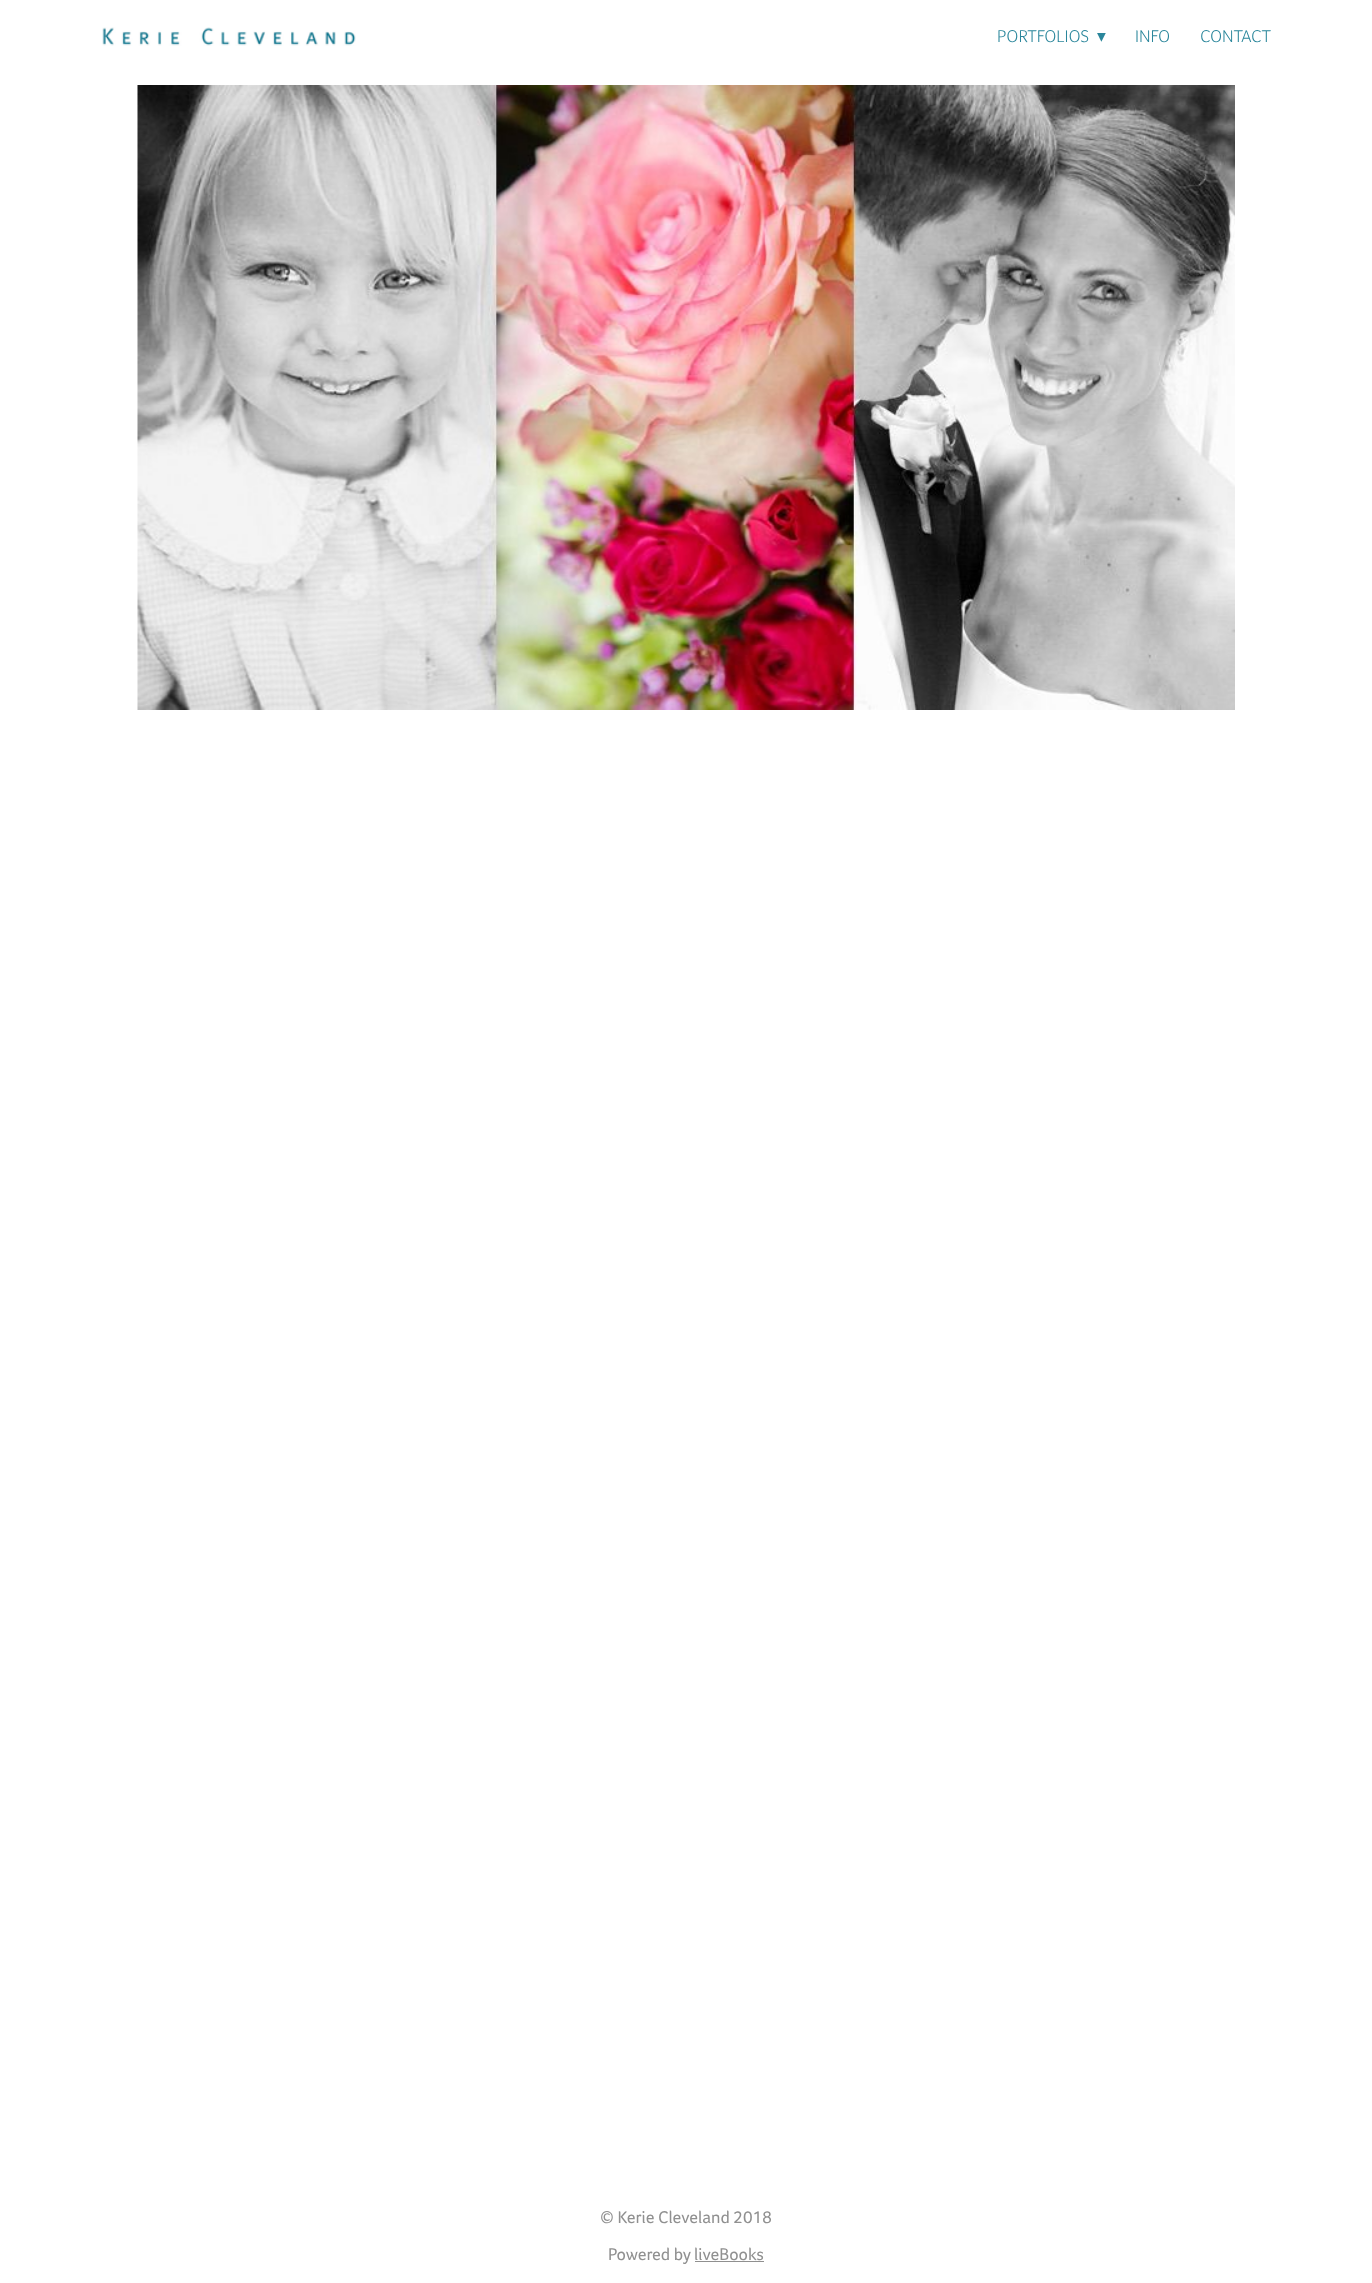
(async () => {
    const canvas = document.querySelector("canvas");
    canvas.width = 1372;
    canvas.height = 2283;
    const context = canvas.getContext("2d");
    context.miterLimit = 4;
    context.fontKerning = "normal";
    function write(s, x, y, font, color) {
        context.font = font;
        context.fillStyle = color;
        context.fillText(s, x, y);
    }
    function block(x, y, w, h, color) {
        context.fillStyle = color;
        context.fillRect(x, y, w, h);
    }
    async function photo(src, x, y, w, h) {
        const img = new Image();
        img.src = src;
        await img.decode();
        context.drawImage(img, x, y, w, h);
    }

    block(0, 0, 1372, 2283, "rgb(255, 255, 255)");
    await photo("media/1.png", 102, 27, 254, 19);
    write("PORTFOLIOS", 997, 42, "300 17.5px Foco", "rgb(42, 134, 155)");
    write("▾", 1097, 42, "17.5px DejaVu Sans", "rgb(42, 134, 155)");
    write("INFO", 1135, 42, "300 17.5px Foco", "rgb(42, 134, 155)");
    write("CONTACT", 1200, 42, "300 17.5px Foco", "rgb(42, 134, 155)");
    await photo("media/2.png", 137, 85, 1098, 625);
    write("© Kerie Cleveland 2018", 600, 2223, "17.5px Foco", "rgb(144, 144, 144)");
    write("Powered by liveBooks", 608, 2260, "17.5px Foco", "rgb(144, 144, 144)");
    block(695, 2261, 69, 1, "rgb(144, 144, 144)");
})();
